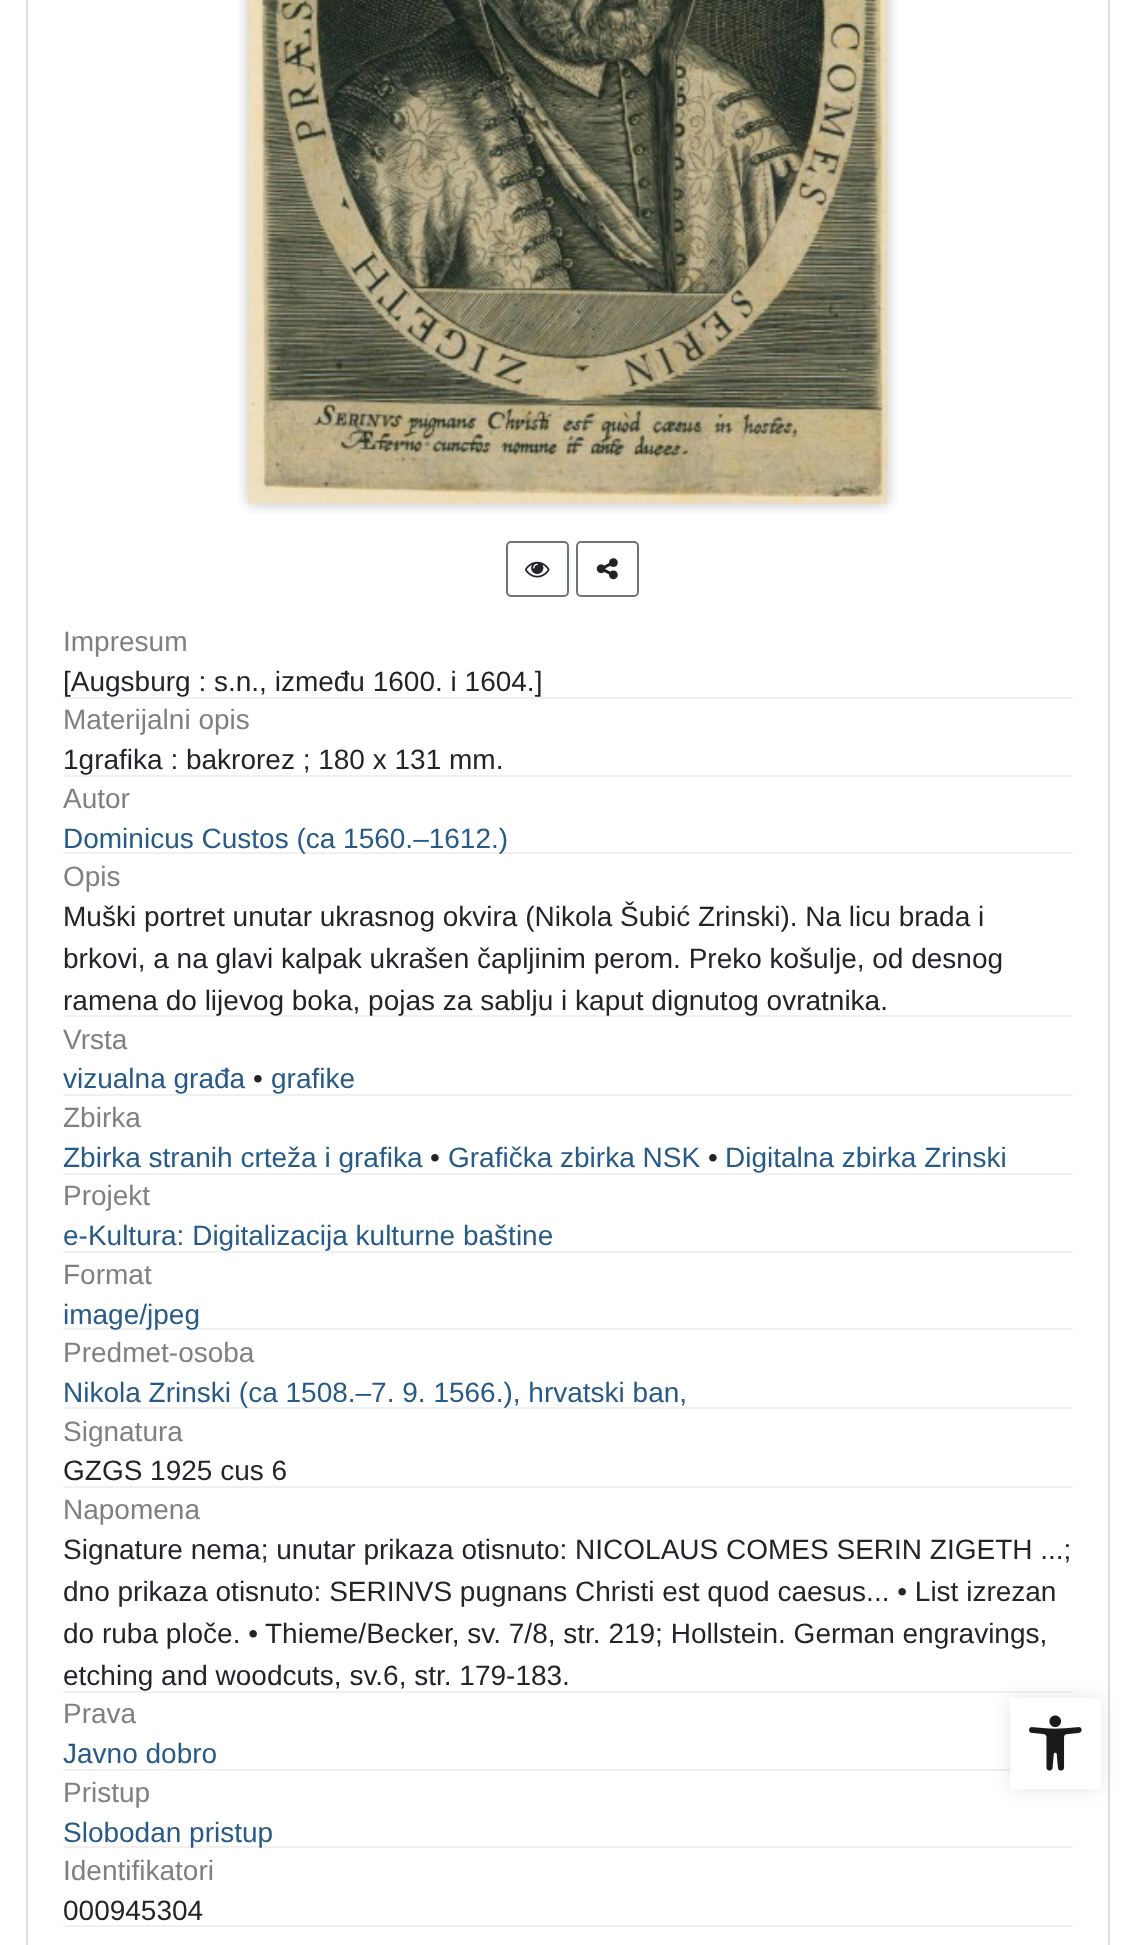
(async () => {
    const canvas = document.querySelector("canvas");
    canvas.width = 1135;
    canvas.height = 1945;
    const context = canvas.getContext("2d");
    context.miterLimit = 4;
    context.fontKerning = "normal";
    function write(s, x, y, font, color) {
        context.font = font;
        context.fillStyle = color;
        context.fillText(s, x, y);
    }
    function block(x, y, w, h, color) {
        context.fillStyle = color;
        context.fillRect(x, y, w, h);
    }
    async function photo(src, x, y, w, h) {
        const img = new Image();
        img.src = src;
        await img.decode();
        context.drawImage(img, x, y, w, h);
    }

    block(0, 0, 1135, 1945, "rgb(255, 255, 255)");
    context.strokeStyle = "rgb(223, 223, 223)";
    context.lineWidth = 2;
    context.strokeRect(27, -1, 1082, 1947);
    await photo("media/1.png", 238, 0, 660, 514);
    context.beginPath();
    context.roundRect(507, 542, 61, 54, 4);
    context.strokeStyle = "rgb(108, 117, 125)";
    context.stroke();
    await photo("media/2.png", 525, 561, 25, 17);
    context.beginPath();
    context.roundRect(577, 542, 61, 54, 4);
    context.stroke();
    await photo("media/3.png", 596, 558, 22, 22);
    write("Impresum", 63, 651, "28px Liberation Sans", "rgb(128, 128, 128)");
    write("[Augsburg : s.n., između 1600. i 1604.]", 63, 691, "28px Liberation Sans", "rgb(33, 37, 41)");
    block(63, 697, 1010, 2, "rgb(240, 240, 240)");
    write("Materijalni opis", 63, 729, "28px Liberation Sans", "rgb(128, 128, 128)");
    write("1grafika : bakrorez ; 180 x 131 mm.", 63, 769, "28px Liberation Sans", "rgb(33, 37, 41)");
    block(63, 775, 1010, 2, "rgb(240, 240, 240)");
    write("Autor", 63, 808, "28px Liberation Sans", "rgb(128, 128, 128)");
    block(63, 852, 1010, 2, "rgb(240, 240, 240)");
    write("Dominicus Custos (ca 1560.–1612.)", 63, 848, "28px Liberation Sans", "rgb(39, 90, 135)");
    write("Opis", 63, 886, "28px Liberation Sans", "rgb(128, 128, 128)");
    write("Muški portret unutar ukrasnog okvira (Nikola Šubić Zrinski). Na licu brada i", 63, 926, "28px Liberation Sans", "rgb(33, 37, 41)");
    write("brkovi, a na glavi kalpak ukrašen čapljinim perom. Preko košulje, od desnog", 63, 968, "28px Liberation Sans", "rgb(33, 37, 41)");
    block(63, 1015, 1010, 2, "rgb(240, 240, 240)");
    write("ramena do lijevog boka, pojas za sablju i kaput dignutog ovratnika.", 63, 1010, "28px Liberation Sans", "rgb(33, 37, 41)");
    write("Vrsta", 63, 1049, "28px Liberation Sans", "rgb(128, 128, 128)");
    write("vizualna građa", 63, 1088, "28px Liberation Sans", "rgb(39, 90, 135)");
    write("•", 253, 1088, "28px Liberation Sans", "rgb(33, 37, 41)");
    write("grafike", 271, 1088, "28px Liberation Sans", "rgb(39, 90, 135)");
    block(63, 1094, 1010, 2, "rgb(240, 240, 240)");
    write("Zbirka", 63, 1127, "28px Liberation Sans", "rgb(128, 128, 128)");
    write("Zbirka stranih crteža i grafika", 63, 1167, "28px Liberation Sans", "rgb(39, 90, 135)");
    write("•", 430, 1167, "28px Liberation Sans", "rgb(33, 37, 41)");
    write("Grafička zbirka NSK", 448, 1167, "28px Liberation Sans", "rgb(39, 90, 135)");
    write("•", 708, 1167, "28px Liberation Sans", "rgb(33, 37, 41)");
    write("Digitalna zbirka Zrinski", 725, 1167, "28px Liberation Sans", "rgb(39, 90, 135)");
    block(63, 1173, 1010, 2, "rgb(240, 240, 240)");
    write("Projekt", 63, 1205, "28px Liberation Sans", "rgb(128, 128, 128)");
    write("e-Kultura: Digitalizacija kulturne baštine", 63, 1245, "28px Liberation Sans", "rgb(39, 90, 135)");
    block(63, 1251, 1010, 2, "rgb(240, 240, 240)");
    write("Format", 63, 1284, "28px Liberation Sans", "rgb(128, 128, 128)");
    block(63, 1328, 1010, 2, "rgb(240, 240, 240)");
    write("image/jpeg", 63, 1324, "28px Liberation Sans", "rgb(39, 90, 135)");
    write("Predmet-osoba", 63, 1362, "28px Liberation Sans", "rgb(128, 128, 128)");
    block(63, 1407, 1010, 2, "rgb(240, 240, 240)");
    write("Nikola Zrinski (ca 1508.–7. 9. 1566.), hrvatski ban,", 63, 1402, "28px Liberation Sans", "rgb(39, 90, 135)");
    write("Signatura", 63, 1441, "28px Liberation Sans", "rgb(128, 128, 128)");
    write("GZGS 1925 cus 6", 63, 1480, "28px Liberation Sans", "rgb(33, 37, 41)");
    block(63, 1486, 1010, 2, "rgb(240, 240, 240)");
    write("Napomena", 63, 1519, "28px Liberation Sans", "rgb(128, 128, 128)");
    write("Signature nema; unutar prikaza otisnuto: NICOLAUS COMES SERIN ZIGETH ...;", 63, 1559, "28px Liberation Sans", "rgb(33, 37, 41)");
    write("dno prikaza otisnuto: SERINVS pugnans Christi est quod caesus... • List izrezan", 63, 1601, "28px Liberation Sans", "rgb(33, 37, 41)");
    write("do ruba ploče. •", 63, 1643, "28px Liberation Sans", "rgb(33, 37, 41)");
    write("Thieme/Becker, sv. 7/8, str. 219; Hollstein. German engravings,", 265, 1643, "28px Liberation Sans", "rgb(33, 37, 41)");
    write("etching and woodcuts, sv.6, str. 179-183.", 63, 1685, "28px Liberation Sans", "rgb(33, 37, 41)");
    block(63, 1691, 1010, 2, "rgb(240, 240, 240)");
    write("Prava", 63, 1723, "28px Liberation Sans", "rgb(128, 128, 128)");
    write("Javno dobro", 63, 1763, "28px Liberation Sans", "rgb(39, 90, 135)");
    block(63, 1769, 947, 2, "rgb(240, 240, 240)");
    write("Pristup", 63, 1802, "28px Liberation Sans", "rgb(128, 128, 128)");
    block(63, 1846, 1010, 2, "rgb(240, 240, 240)");
    write("Slobodan pristup", 63, 1842, "28px Liberation Sans", "rgb(39, 90, 135)");
    write("Identifikatori", 63, 1880, "28px Liberation Sans", "rgb(128, 128, 128)");
    write("000945304", 63, 1920, "28px Liberation Sans", "rgb(33, 37, 41)");
    block(63, 1925, 1010, 2, "rgb(240, 240, 240)");
    context.fillStyle = "rgba(0, 0, 0, 0.1)";
    context.filter = "blur(9px)";
    context.beginPath();
    context.rect(1010, 1698, 91, 91);
    context.fill();
    context.filter = "none";
    block(1010, 1698, 91, 91, "rgb(255, 255, 255)");
    await photo("media/4.png", 1029, 1715, 53, 56);
})();
